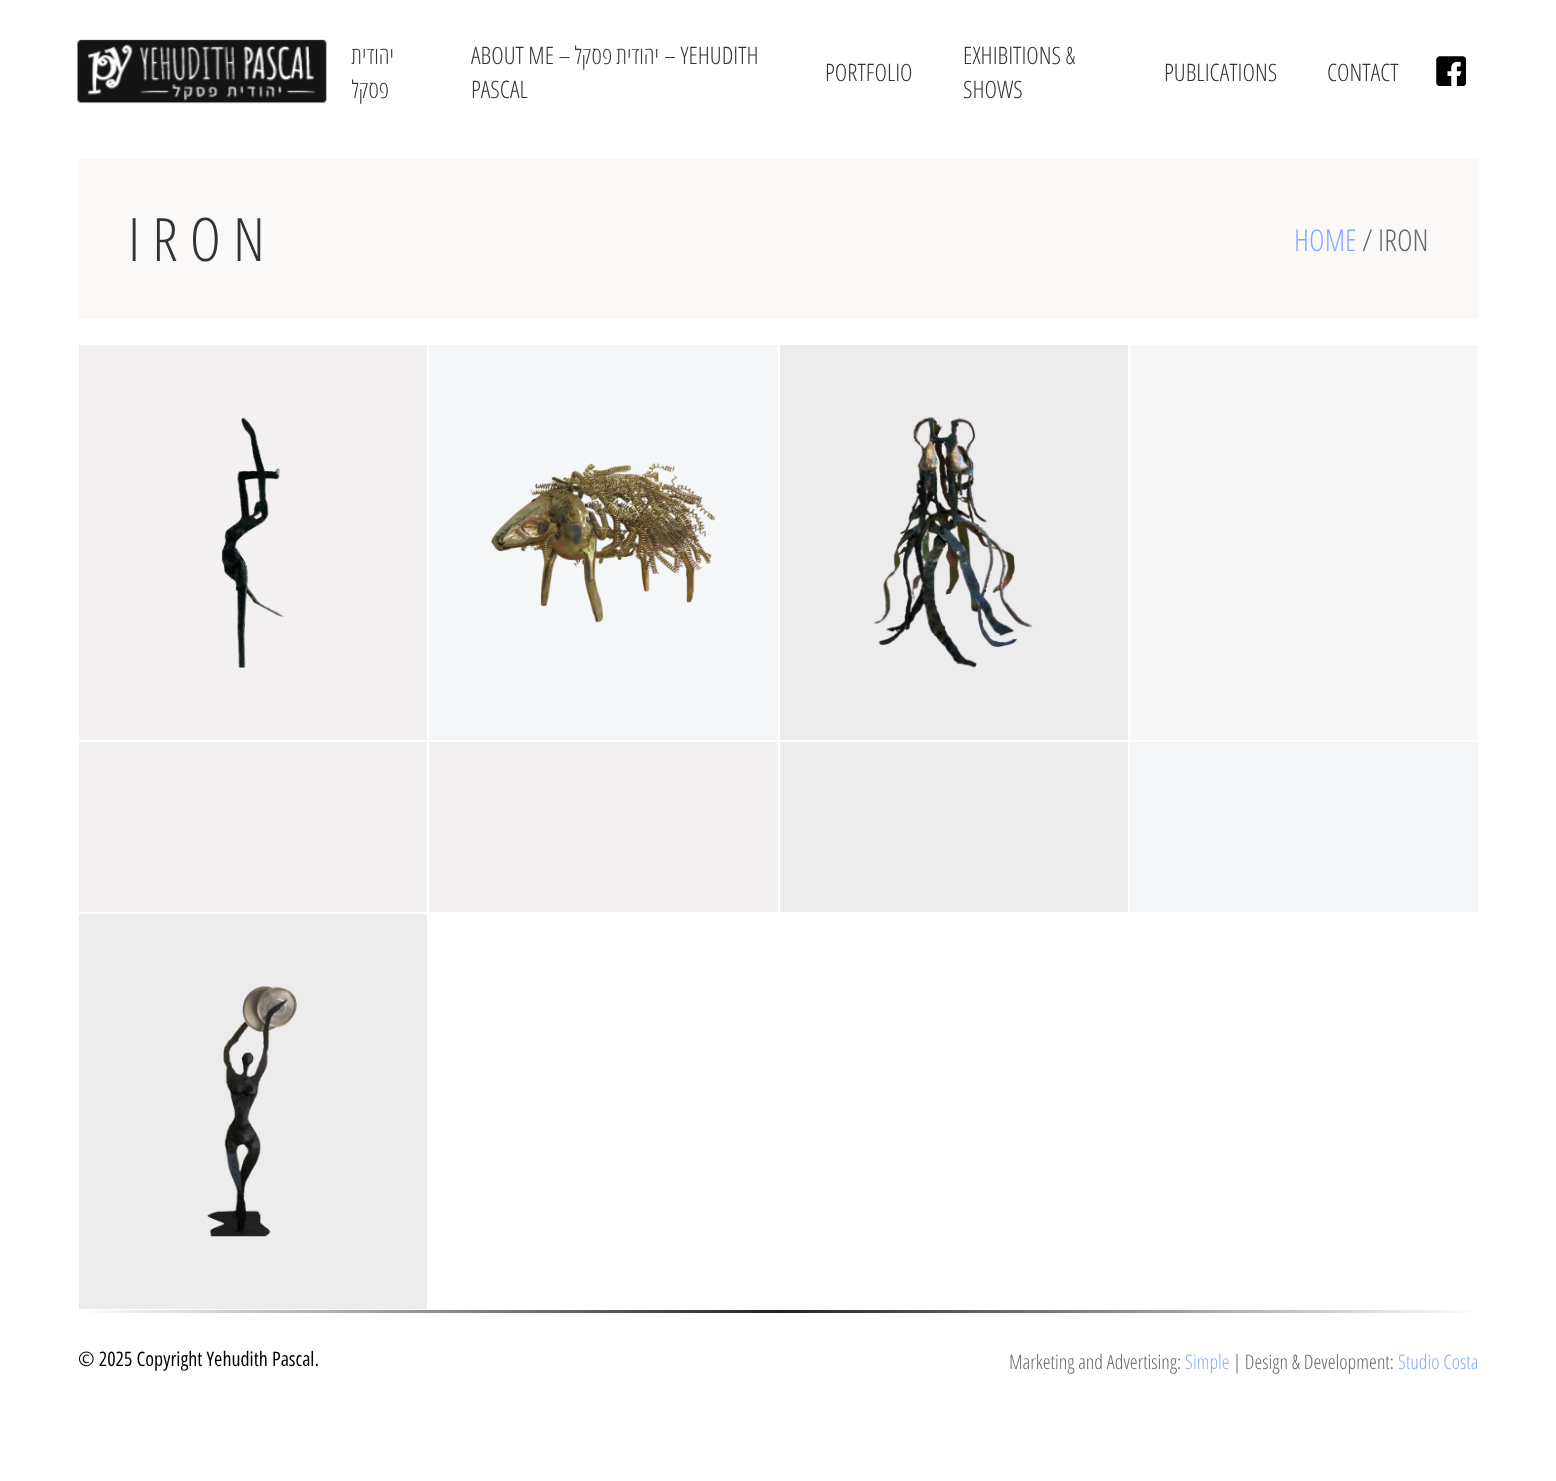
(async () => {
    const canvas = document.querySelector("canvas");
    canvas.width = 1556;
    canvas.height = 1481;
    const context = canvas.getContext("2d");
    context.miterLimit = 4;
    context.fontKerning = "normal";
    function write(s, x, y, font, color) {
        context.font = font;
        context.fillStyle = color;
        context.fillText(s, x, y);
    }
    function block(x, y, w, h, color) {
        context.fillStyle = color;
        context.fillRect(x, y, w, h);
    }
    async function photo(src, x, y, w, h) {
        const img = new Image();
        img.src = src;
        await img.decode();
        context.drawImage(img, x, y, w, h);
    }
    let gradient;

    block(0, 0, 1556, 1481, "rgb(255, 255, 255)");
    await photo("media/1.png", 77, 39, 250, 65);
    context.direction = "rtl";
    write("יהודית", 394, 64, "300 24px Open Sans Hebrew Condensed", "rgb(51, 51, 51)");
    write("פסקל", 389, 98, "300 24px Open Sans Hebrew Condensed", "rgb(51, 51, 51)");
    context.direction = "ltr";
    write("ABOUT ME –", 471, 64, "300 24px Open Sans Hebrew Condensed", "rgb(51, 51, 51)");
    context.direction = "rtl";
    write("יהודית פסקל", 659, 64, "300 24px Open Sans Hebrew Condensed", "rgb(51, 51, 51)");
    context.direction = "ltr";
    write("– YEHUDITH", 664, 64, "300 24px Open Sans Hebrew Condensed", "rgb(51, 51, 51)");
    write("PASCAL", 471, 98, "300 24px Open Sans Hebrew Condensed", "rgb(51, 51, 51)");
    write("PORTFOLIO", 825, 81, "300 24px Open Sans Hebrew Condensed", "rgb(51, 51, 51)");
    write("EXHIBITIONS &", 963, 64, "300 24px Open Sans Hebrew Condensed", "rgb(51, 51, 51)");
    write("SHOWS", 963, 98, "300 24px Open Sans Hebrew Condensed", "rgb(51, 51, 51)");
    write("PUBLICATIONS", 1164, 81, "300 24px Open Sans Hebrew Condensed", "rgb(51, 51, 51)");
    write("CONTACT", 1327, 81, "300 24px Open Sans Hebrew Condensed", "rgb(51, 51, 51)");
    await photo("media/2.png", 1436, 56, 30, 30);
    block(78, 159, 1401, 160, "rgb(251, 248, 248)");
    context.letterSpacing = "12px";
    write("IRON", 128, 261, "300 60px Open Sans Hebrew Condensed", "rgb(51, 51, 51)");
    context.letterSpacing = "0px";
    write("HOME", 1294, 251, "300 30px Open Sans Hebrew Condensed", "rgb(136, 171, 255)");
    write("/ IRON", 1362, 251, "300 30px Open Sans Hebrew Condensed", "rgb(102, 102, 102)");
    block(79, 345, 348, 395, "rgb(242, 240, 241)");
    await photo("media/3.png", 221, 417, 63, 251);
    block(429, 345, 349, 395, "rgb(245, 246, 248)");
    await photo("media/4.png", 491, 463, 224, 160);
    block(780, 345, 348, 395, "rgb(236, 236, 236)");
    await photo("media/5.png", 873, 417, 160, 251);
    block(1130, 345, 348, 395, "rgb(247, 247, 247)");
    block(79, 742, 348, 170, "rgb(242, 240, 241)");
    block(429, 742, 349, 170, "rgb(242, 240, 241)");
    block(780, 742, 348, 170, "rgb(236, 236, 236)");
    block(1130, 742, 348, 170, "rgb(245, 246, 248)");
    block(79, 914, 348, 395, "rgb(236, 236, 236)");
    await photo("media/6.png", 207, 986, 90, 251);
    gradient = context.createLinearGradient(1479, 1311, 78, 1311);
    gradient.addColorStop(0, "rgb(255, 255, 255)");
    gradient.addColorStop(0.5, "rgb(34, 34, 34)");
    gradient.addColorStop(1, "rgb(255, 255, 255)");
    context.fillStyle = gradient;
    context.fillRect(78, 1310, 1401, 3);
    write("© 2025 Copyright Yehudith Pascal.", 78, 1366, "20px Open Sans Hebrew Condensed", "rgb(0, 0, 0)");
    write("Marketing and Advertising:", 1009, 1369, "300 20px Open Sans Hebrew Condensed", "rgb(102, 102, 102)");
    write("Simple", 1185, 1369, "300 20px Open Sans Hebrew Condensed", "rgb(136, 171, 255)");
    write("| Design & Development:", 1233, 1369, "300 20px Open Sans Hebrew Condensed", "rgb(102, 102, 102)");
    write("Studio Costa", 1398, 1369, "300 20px Open Sans Hebrew Condensed", "rgb(136, 171, 255)");
})();
